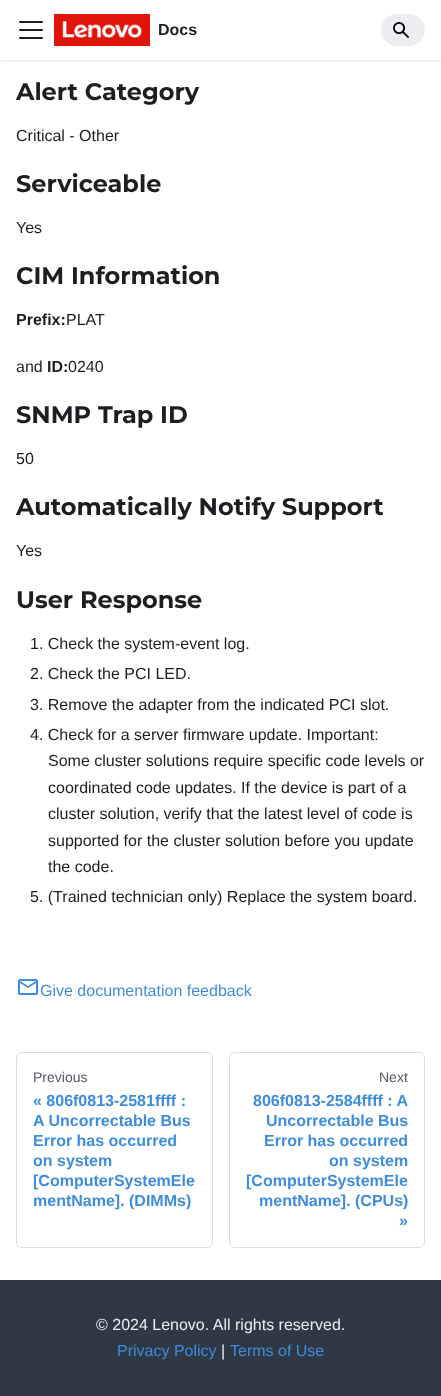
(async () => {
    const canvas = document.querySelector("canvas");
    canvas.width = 441;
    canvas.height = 1396;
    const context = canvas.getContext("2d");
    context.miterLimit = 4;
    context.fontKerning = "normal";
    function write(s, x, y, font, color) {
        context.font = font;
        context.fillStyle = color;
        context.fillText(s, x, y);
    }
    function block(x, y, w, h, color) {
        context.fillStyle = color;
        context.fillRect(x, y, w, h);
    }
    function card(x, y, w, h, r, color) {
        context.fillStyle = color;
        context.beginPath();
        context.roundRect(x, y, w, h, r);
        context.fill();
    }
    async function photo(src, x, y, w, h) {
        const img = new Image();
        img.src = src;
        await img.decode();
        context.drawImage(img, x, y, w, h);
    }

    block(0, 0, 441, 1396, "rgb(255, 255, 255)");
    context.fillStyle = "rgba(0, 0, 0, 0.1)";
    context.filter = "blur(1px)";
    context.beginPath();
    context.rect(0, 1, 441, 60);
    context.fill();
    context.filter = "none";
    block(0, 0, 441, 60, "rgb(255, 255, 255)");
    await photo("media/1.png", 19, 21, 24, 18);
    await photo("media/2.png", 54, 14, 96, 32);
    write("Docs", 158, 35, "bold 16px Liberation Sans", "rgb(28, 30, 33)");
    card(381, 14, 44, 32, 16, "rgb(235, 237, 240)");
    await photo("media/3.png", 393, 22, 16, 16);
    write("Alert Category", 16, 100, "bold 24px Montserrat", "rgb(28, 30, 33)");
    write("Critical - Other", 16, 141, "16px Liberation Sans", "rgb(28, 30, 33)");
    write("Serviceable", 16, 192, "bold 24px Montserrat", "rgb(28, 30, 33)");
    write("Yes", 16, 233, "16px Liberation Sans", "rgb(28, 30, 33)");
    write("CIM Information", 16, 284, "bold 24px Montserrat", "rgb(28, 30, 33)");
    write("Prefix:", 16, 325, "bold 16px Liberation Sans", "rgb(28, 30, 33)");
    write("PLAT", 66, 325, "16px Liberation Sans", "rgb(28, 30, 33)");
    write("and", 16, 372, "16px Liberation Sans", "rgb(28, 30, 33)");
    write("ID:", 47, 372, "bold 16px Liberation Sans", "rgb(28, 30, 33)");
    write("0240", 68, 372, "16px Liberation Sans", "rgb(28, 30, 33)");
    write("SNMP Trap ID", 16, 423, "bold 24px Montserrat", "rgb(28, 30, 33)");
    write("50", 16, 464, "16px Liberation Sans", "rgb(28, 30, 33)");
    write("Automatically Notify Support", 16, 515, "bold 24px Montserrat", "rgb(28, 30, 33)");
    write("Yes", 16, 556, "16px Liberation Sans", "rgb(28, 30, 33)");
    write("User Response", 16, 608, "bold 24px Montserrat", "rgb(28, 30, 33)");
    write("1. Check the system-event log.", 30, 649, "16px Liberation Sans", "rgb(28, 30, 33)");
    write("2. Check the PCI LED.", 30, 679, "16px Liberation Sans", "rgb(28, 30, 33)");
    write("3. Remove the adapter from the indicated PCI slot.", 30, 710, "16px Liberation Sans", "rgb(28, 30, 33)");
    write("4. Check for a server firmware update. Important:", 30, 740, "16px Liberation Sans", "rgb(28, 30, 33)");
    write("Some cluster solutions require specific code levels or", 48, 766, "16px Liberation Sans", "rgb(28, 30, 33)");
    write("coordinated code updates. If the device is part of a", 48, 793, "16px Liberation Sans", "rgb(28, 30, 33)");
    write("cluster solution, verify that the latest level of code is", 48, 819, "16px Liberation Sans", "rgb(28, 30, 33)");
    write("supported for the cluster solution before you update", 48, 846, "16px Liberation Sans", "rgb(28, 30, 33)");
    write("the code.", 48, 872, "16px Liberation Sans", "rgb(28, 30, 33)");
    write("5. (Trained technician only) Replace the system board.", 30, 902, "16px Liberation Sans", "rgb(28, 30, 33)");
    await photo("media/4.png", 18, 979, 20, 16);
    write("Give documentation feedback", 40, 996, "16px Liberation Sans", "rgb(62, 141, 221)");
    context.beginPath();
    context.roundRect(16.5, 1052.5, 196, 195, 5.5);
    context.strokeStyle = "rgb(218, 221, 225)";
    context.stroke();
    write("Previous", 33, 1082, "14px Liberation Sans", "rgb(82, 88, 96)");
    write("« 806f0813-2581ffff :", 33, 1106, "bold 16px Liberation Sans", "rgb(62, 141, 221)");
    write("A Uncorrectable Bus", 33, 1126, "bold 16px Liberation Sans", "rgb(62, 141, 221)");
    write("Error has occurred", 33, 1146, "bold 16px Liberation Sans", "rgb(62, 141, 221)");
    write("on system", 33, 1166, "bold 16px Liberation Sans", "rgb(62, 141, 221)");
    write("[ComputerSystemEle", 33, 1186, "bold 16px Liberation Sans", "rgb(62, 141, 221)");
    write("mentName]. (DIMMs)", 33, 1206, "bold 16px Liberation Sans", "rgb(62, 141, 221)");
    context.beginPath();
    context.roundRect(229.5, 1052.5, 195, 195, 5.5);
    context.stroke();
    write("Next", 379, 1082, "14px Liberation Sans", "rgb(82, 88, 96)");
    write("806f0813-2584ffff : A", 253, 1106, "bold 16px Liberation Sans", "rgb(62, 141, 221)");
    write("Uncorrectable Bus", 266, 1126, "bold 16px Liberation Sans", "rgb(62, 141, 221)");
    write("Error has occurred", 264, 1146, "bold 16px Liberation Sans", "rgb(62, 141, 221)");
    write("on system", 329, 1166, "bold 16px Liberation Sans", "rgb(62, 141, 221)");
    write("[ComputerSystemEle", 246, 1186, "bold 16px Liberation Sans", "rgb(62, 141, 221)");
    write("mentName]. (CPUs)", 259, 1206, "bold 16px Liberation Sans", "rgb(62, 141, 221)");
    write("»", 399, 1226, "bold 16px Liberation Sans", "rgb(62, 141, 221)");
    block(0, 1280, 441, 116, "rgb(48, 56, 70)");
    write("© 2024 Lenovo. All rights reserved.", 96, 1330, "16px Liberation Sans", "rgb(235, 237, 240)");
    write("Privacy Policy", 117, 1356, "16px Liberation Sans", "rgb(62, 141, 221)");
    write("|", 221, 1356, "16px Liberation Sans", "rgb(235, 237, 240)");
    write("Terms of Use", 230, 1356, "16px Liberation Sans", "rgb(62, 141, 221)");
})();
